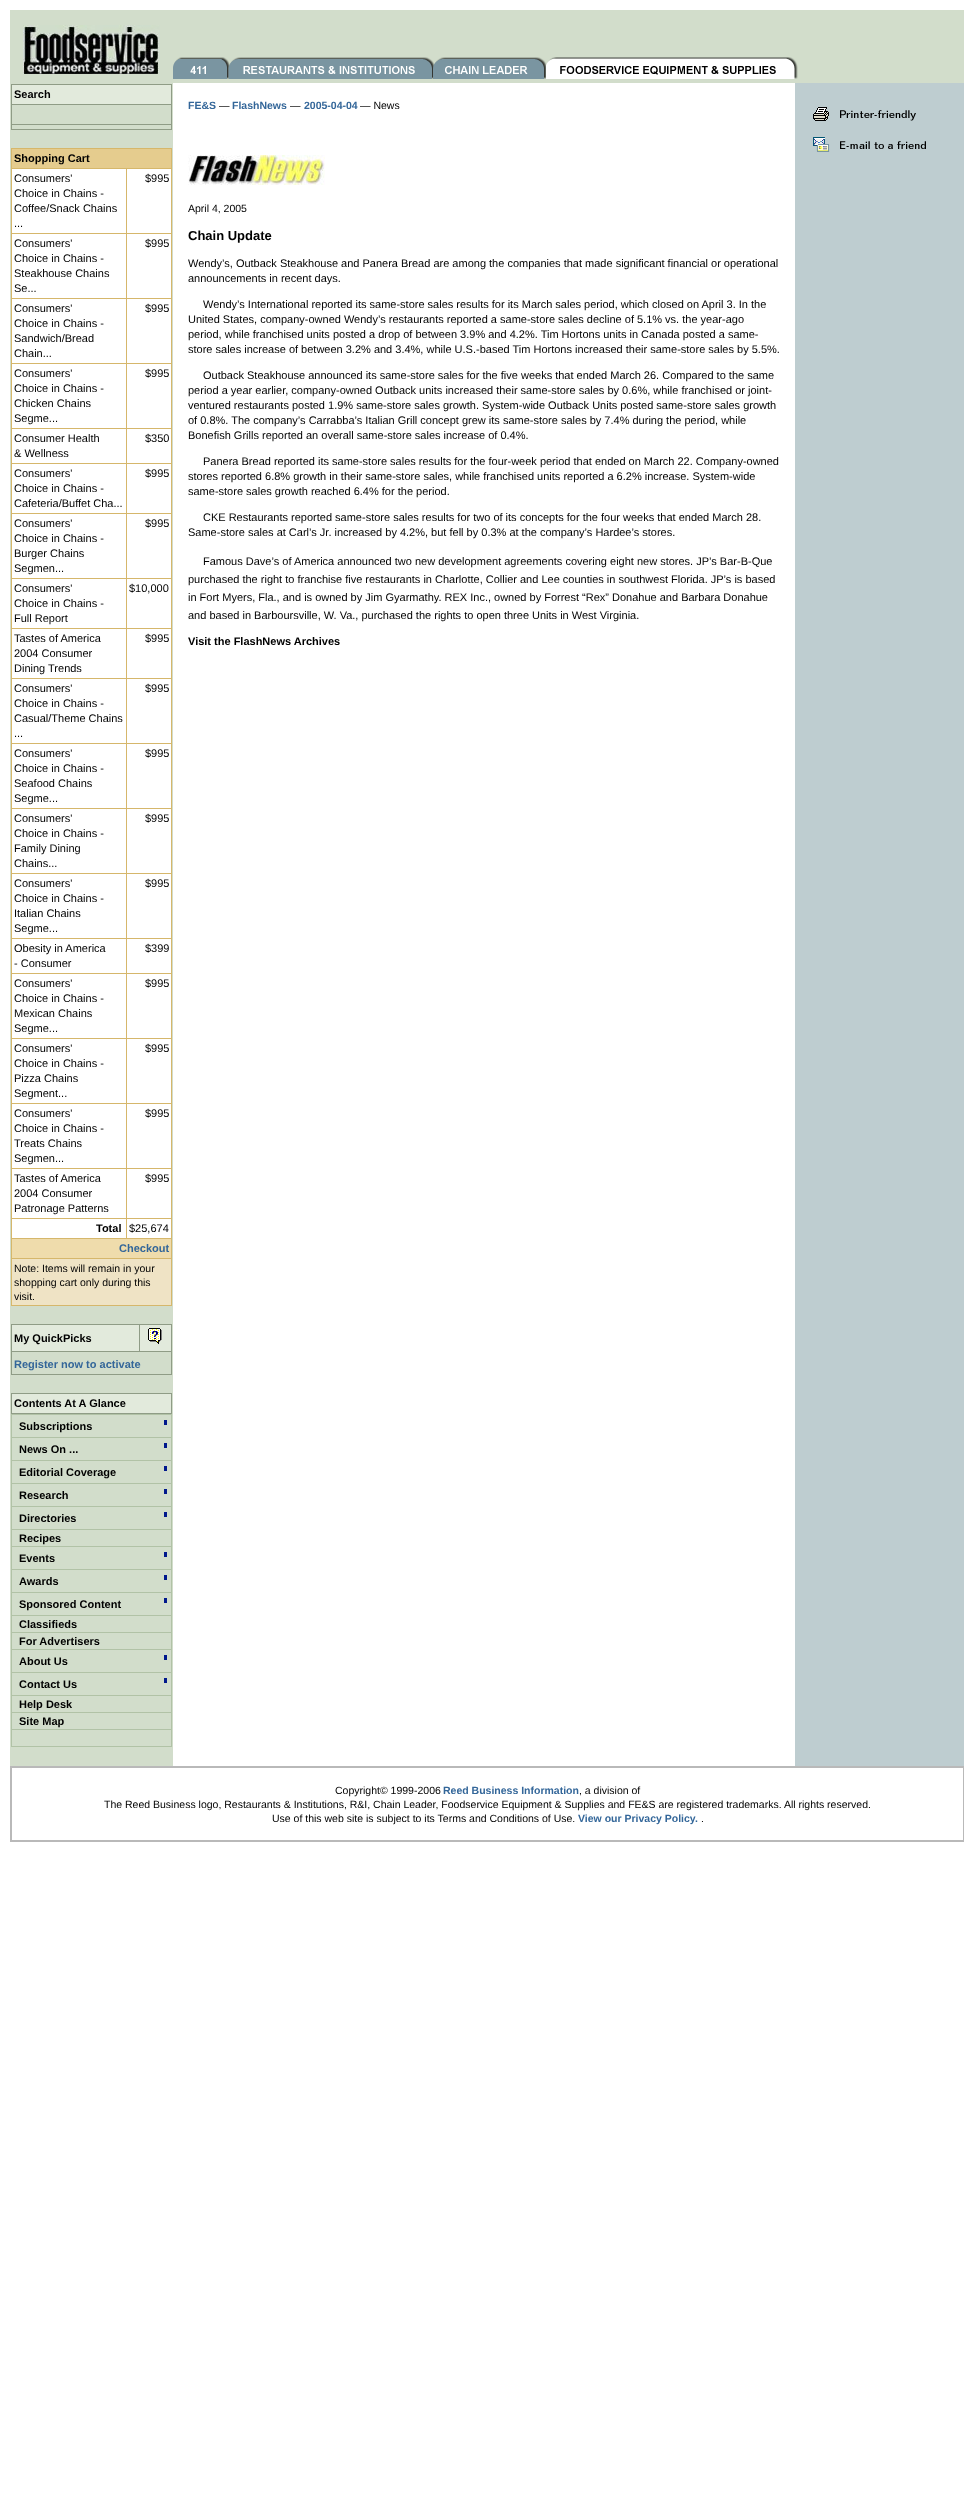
(async () => {
    const canvas = document.querySelector("canvas");
    canvas.width = 964;
    canvas.height = 2511;
    const context = canvas.getContext("2d");
    context.miterLimit = 4;
    context.fontKerning = "normal";
    function write(s, x, y, font, color) {
        context.font = font;
        context.fillStyle = color;
        context.fillText(s, x, y);
    }
    function block(x, y, w, h, color) {
        context.fillStyle = color;
        context.fillRect(x, y, w, h);
    }
    async function photo(src, x, y, w, h) {
        const img = new Image();
        img.src = src;
        await img.decode();
        context.drawImage(img, x, y, w, h);
    }

    block(0, 0, 964, 2511, "rgb(255, 255, 255)");
    block(10, 10, 954, 73, "rgb(210, 221, 203)");
    await photo("media/1.png", 23, 25, 137, 49);
    await photo("media/2.png", 173, 57, 625, 22);
    block(10, 83, 163, 1683, "rgb(210, 221, 203)");
    block(11, 84, 161, 46, "rgb(143, 156, 134)");
    block(12, 85, 159, 19, "rgb(226, 234, 220)");
    write("Search", 14, 98, "bold 11px Liberation Sans", "rgb(0, 0, 0)");
    block(12, 105, 159, 19, "rgb(210, 221, 203)");
    block(12, 125, 159, 4, "rgb(210, 221, 203)");
    block(11, 148, 161, 1158, "rgb(214, 183, 107)");
    block(12, 149, 159, 19, "rgb(229, 204, 142)");
    write("Shopping Cart", 14, 162, "bold 11px Liberation Sans", "rgb(0, 0, 0)");
    block(12, 169, 114, 64, "rgb(255, 255, 255)");
    write("Consumers'", 14, 182, "11px Liberation Sans", "rgb(0, 0, 0)");
    write("Choice in Chains -", 14, 197, "11px Liberation Sans", "rgb(0, 0, 0)");
    write("Coffee/Snack Chains", 14, 212, "11px Liberation Sans", "rgb(0, 0, 0)");
    write("...", 14, 227, "11px Liberation Sans", "rgb(0, 0, 0)");
    block(127, 169, 44, 64, "rgb(255, 255, 255)");
    write("$995", 145, 182, "11px Liberation Sans", "rgb(0, 0, 0)");
    block(12, 234, 114, 64, "rgb(255, 255, 255)");
    write("Consumers'", 14, 247, "11px Liberation Sans", "rgb(0, 0, 0)");
    write("Choice in Chains -", 14, 262, "11px Liberation Sans", "rgb(0, 0, 0)");
    write("Steakhouse Chains", 14, 277, "11px Liberation Sans", "rgb(0, 0, 0)");
    write("Se...", 14, 292, "11px Liberation Sans", "rgb(0, 0, 0)");
    block(127, 234, 44, 64, "rgb(255, 255, 255)");
    write("$995", 145, 247, "11px Liberation Sans", "rgb(0, 0, 0)");
    block(12, 299, 114, 64, "rgb(255, 255, 255)");
    write("Consumers'", 14, 312, "11px Liberation Sans", "rgb(0, 0, 0)");
    write("Choice in Chains -", 14, 327, "11px Liberation Sans", "rgb(0, 0, 0)");
    write("Sandwich/Bread", 14, 342, "11px Liberation Sans", "rgb(0, 0, 0)");
    write("Chain...", 14, 357, "11px Liberation Sans", "rgb(0, 0, 0)");
    block(127, 299, 44, 64, "rgb(255, 255, 255)");
    write("$995", 145, 312, "11px Liberation Sans", "rgb(0, 0, 0)");
    block(12, 364, 114, 64, "rgb(255, 255, 255)");
    write("Consumers'", 14, 377, "11px Liberation Sans", "rgb(0, 0, 0)");
    write("Choice in Chains -", 14, 392, "11px Liberation Sans", "rgb(0, 0, 0)");
    write("Chicken Chains", 14, 407, "11px Liberation Sans", "rgb(0, 0, 0)");
    write("Segme...", 14, 422, "11px Liberation Sans", "rgb(0, 0, 0)");
    block(127, 364, 44, 64, "rgb(255, 255, 255)");
    write("$995", 145, 377, "11px Liberation Sans", "rgb(0, 0, 0)");
    block(12, 429, 114, 34, "rgb(255, 255, 255)");
    write("Consumer Health", 14, 442, "11px Liberation Sans", "rgb(0, 0, 0)");
    write("& Wellness", 14, 457, "11px Liberation Sans", "rgb(0, 0, 0)");
    block(127, 429, 44, 34, "rgb(255, 255, 255)");
    write("$350", 145, 442, "11px Liberation Sans", "rgb(0, 0, 0)");
    block(12, 464, 114, 49, "rgb(255, 255, 255)");
    write("Consumers'", 14, 477, "11px Liberation Sans", "rgb(0, 0, 0)");
    write("Choice in Chains -", 14, 492, "11px Liberation Sans", "rgb(0, 0, 0)");
    write("Cafeteria/Buffet Cha...", 14, 507, "11px Liberation Sans", "rgb(0, 0, 0)");
    block(127, 464, 44, 49, "rgb(255, 255, 255)");
    write("$995", 145, 477, "11px Liberation Sans", "rgb(0, 0, 0)");
    block(12, 514, 114, 64, "rgb(255, 255, 255)");
    write("Consumers'", 14, 527, "11px Liberation Sans", "rgb(0, 0, 0)");
    write("Choice in Chains -", 14, 542, "11px Liberation Sans", "rgb(0, 0, 0)");
    write("Burger Chains", 14, 557, "11px Liberation Sans", "rgb(0, 0, 0)");
    write("Segmen...", 14, 572, "11px Liberation Sans", "rgb(0, 0, 0)");
    block(127, 514, 44, 64, "rgb(255, 255, 255)");
    write("$995", 145, 527, "11px Liberation Sans", "rgb(0, 0, 0)");
    block(12, 579, 114, 49, "rgb(255, 255, 255)");
    write("Consumers'", 14, 592, "11px Liberation Sans", "rgb(0, 0, 0)");
    write("Choice in Chains -", 14, 607, "11px Liberation Sans", "rgb(0, 0, 0)");
    write("Full Report", 14, 622, "11px Liberation Sans", "rgb(0, 0, 0)");
    block(127, 579, 44, 49, "rgb(255, 255, 255)");
    write("$10,000", 129, 592, "11px Liberation Sans", "rgb(0, 0, 0)");
    block(12, 629, 114, 49, "rgb(255, 255, 255)");
    write("Tastes of America", 14, 642, "11px Liberation Sans", "rgb(0, 0, 0)");
    write("2004 Consumer", 14, 657, "11px Liberation Sans", "rgb(0, 0, 0)");
    write("Dining Trends", 14, 672, "11px Liberation Sans", "rgb(0, 0, 0)");
    block(127, 629, 44, 49, "rgb(255, 255, 255)");
    write("$995", 145, 642, "11px Liberation Sans", "rgb(0, 0, 0)");
    block(12, 679, 114, 64, "rgb(255, 255, 255)");
    write("Consumers'", 14, 692, "11px Liberation Sans", "rgb(0, 0, 0)");
    write("Choice in Chains -", 14, 707, "11px Liberation Sans", "rgb(0, 0, 0)");
    write("Casual/Theme Chains", 14, 722, "11px Liberation Sans", "rgb(0, 0, 0)");
    write("...", 14, 737, "11px Liberation Sans", "rgb(0, 0, 0)");
    block(127, 679, 44, 64, "rgb(255, 255, 255)");
    write("$995", 145, 692, "11px Liberation Sans", "rgb(0, 0, 0)");
    block(12, 744, 114, 64, "rgb(255, 255, 255)");
    write("Consumers'", 14, 757, "11px Liberation Sans", "rgb(0, 0, 0)");
    write("Choice in Chains -", 14, 772, "11px Liberation Sans", "rgb(0, 0, 0)");
    write("Seafood Chains", 14, 787, "11px Liberation Sans", "rgb(0, 0, 0)");
    write("Segme...", 14, 802, "11px Liberation Sans", "rgb(0, 0, 0)");
    block(127, 744, 44, 64, "rgb(255, 255, 255)");
    write("$995", 145, 757, "11px Liberation Sans", "rgb(0, 0, 0)");
    block(12, 809, 114, 64, "rgb(255, 255, 255)");
    write("Consumers'", 14, 822, "11px Liberation Sans", "rgb(0, 0, 0)");
    write("Choice in Chains -", 14, 837, "11px Liberation Sans", "rgb(0, 0, 0)");
    write("Family Dining", 14, 852, "11px Liberation Sans", "rgb(0, 0, 0)");
    write("Chains...", 14, 867, "11px Liberation Sans", "rgb(0, 0, 0)");
    block(127, 809, 44, 64, "rgb(255, 255, 255)");
    write("$995", 145, 822, "11px Liberation Sans", "rgb(0, 0, 0)");
    block(12, 874, 114, 64, "rgb(255, 255, 255)");
    write("Consumers'", 14, 887, "11px Liberation Sans", "rgb(0, 0, 0)");
    write("Choice in Chains -", 14, 902, "11px Liberation Sans", "rgb(0, 0, 0)");
    write("Italian Chains", 14, 917, "11px Liberation Sans", "rgb(0, 0, 0)");
    write("Segme...", 14, 932, "11px Liberation Sans", "rgb(0, 0, 0)");
    block(127, 874, 44, 64, "rgb(255, 255, 255)");
    write("$995", 145, 887, "11px Liberation Sans", "rgb(0, 0, 0)");
    block(12, 939, 114, 34, "rgb(255, 255, 255)");
    write("Obesity in America", 14, 952, "11px Liberation Sans", "rgb(0, 0, 0)");
    write("- Consumer", 14, 967, "11px Liberation Sans", "rgb(0, 0, 0)");
    block(127, 939, 44, 34, "rgb(255, 255, 255)");
    write("$399", 145, 952, "11px Liberation Sans", "rgb(0, 0, 0)");
    block(12, 974, 114, 64, "rgb(255, 255, 255)");
    write("Consumers'", 14, 987, "11px Liberation Sans", "rgb(0, 0, 0)");
    write("Choice in Chains -", 14, 1002, "11px Liberation Sans", "rgb(0, 0, 0)");
    write("Mexican Chains", 14, 1017, "11px Liberation Sans", "rgb(0, 0, 0)");
    write("Segme...", 14, 1032, "11px Liberation Sans", "rgb(0, 0, 0)");
    block(127, 974, 44, 64, "rgb(255, 255, 255)");
    write("$995", 145, 987, "11px Liberation Sans", "rgb(0, 0, 0)");
    block(12, 1039, 114, 64, "rgb(255, 255, 255)");
    write("Consumers'", 14, 1052, "11px Liberation Sans", "rgb(0, 0, 0)");
    write("Choice in Chains -", 14, 1067, "11px Liberation Sans", "rgb(0, 0, 0)");
    write("Pizza Chains", 14, 1082, "11px Liberation Sans", "rgb(0, 0, 0)");
    write("Segment...", 14, 1097, "11px Liberation Sans", "rgb(0, 0, 0)");
    block(127, 1039, 44, 64, "rgb(255, 255, 255)");
    write("$995", 145, 1052, "11px Liberation Sans", "rgb(0, 0, 0)");
    block(12, 1104, 114, 64, "rgb(255, 255, 255)");
    write("Consumers'", 14, 1117, "11px Liberation Sans", "rgb(0, 0, 0)");
    write("Choice in Chains -", 14, 1132, "11px Liberation Sans", "rgb(0, 0, 0)");
    write("Treats Chains", 14, 1147, "11px Liberation Sans", "rgb(0, 0, 0)");
    write("Segmen...", 14, 1162, "11px Liberation Sans", "rgb(0, 0, 0)");
    block(127, 1104, 44, 64, "rgb(255, 255, 255)");
    write("$995", 145, 1117, "11px Liberation Sans", "rgb(0, 0, 0)");
    block(12, 1169, 114, 49, "rgb(255, 255, 255)");
    write("Tastes of America", 14, 1182, "11px Liberation Sans", "rgb(0, 0, 0)");
    write("2004 Consumer", 14, 1197, "11px Liberation Sans", "rgb(0, 0, 0)");
    write("Patronage Patterns", 14, 1212, "11px Liberation Sans", "rgb(0, 0, 0)");
    block(127, 1169, 44, 49, "rgb(255, 255, 255)");
    write("$995", 145, 1182, "11px Liberation Sans", "rgb(0, 0, 0)");
    block(12, 1219, 114, 19, "rgb(255, 255, 255)");
    write("Total", 96, 1232, "bold 11px Liberation Sans", "rgb(0, 0, 0)");
    block(127, 1219, 44, 19, "rgb(255, 255, 255)");
    write("$25,674", 129, 1232, "11px Liberation Sans", "rgb(0, 0, 0)");
    block(12, 1239, 159, 19, "rgb(239, 220, 172)");
    write("Checkout", 119, 1252, "bold 11px Liberation Sans", "rgb(51, 102, 153)");
    block(12, 1259, 159, 46, "rgb(239, 227, 197)");
    write("Note: Items will remain in your", 14, 1272, "10.5px Liberation Sans", "rgb(0, 0, 0)");
    write("shopping cart only during this", 14, 1286, "10.5px Liberation Sans", "rgb(0, 0, 0)");
    write("visit.", 14, 1300, "10.5px Liberation Sans", "rgb(0, 0, 0)");
    block(11, 1324, 161, 51, "rgb(143, 156, 134)");
    block(12, 1325, 127, 26, "rgb(226, 234, 220)");
    write("My QuickPicks", 14, 1342, "bold 11px Liberation Sans", "rgb(0, 0, 0)");
    block(140, 1325, 31, 26, "rgb(226, 234, 220)");
    await photo("media/3.png", 148, 1328, 14, 16);
    block(12, 1352, 159, 22, "rgb(210, 221, 203)");
    write("Register now to activate", 14, 1368, "bold 11px Liberation Sans", "rgb(51, 102, 153)");
    block(11, 1393, 161, 21, "rgb(143, 156, 134)");
    block(12, 1394, 159, 19, "rgb(226, 234, 220)");
    write("Contents At A Glance", 14, 1407, "bold 11px Liberation Sans", "rgb(0, 0, 0)");
    block(11, 1414, 161, 333, "rgb(177, 194, 166)");
    block(12, 1415, 159, 22, "rgb(210, 221, 203)");
    write("Subscriptions", 19, 1430, "bold 11px Liberation Sans", "rgb(0, 0, 0)");
    block(164, 1420, 3, 5, "rgb(0, 24, 140)");
    block(12, 1438, 159, 22, "rgb(210, 221, 203)");
    write("News On ...", 19, 1453, "bold 11px Liberation Sans", "rgb(0, 0, 0)");
    block(164, 1443, 3, 5, "rgb(0, 24, 140)");
    block(12, 1461, 159, 22, "rgb(210, 221, 203)");
    write("Editorial Coverage", 19, 1476, "bold 11px Liberation Sans", "rgb(0, 0, 0)");
    block(164, 1466, 3, 5, "rgb(0, 24, 140)");
    block(12, 1484, 159, 22, "rgb(210, 221, 203)");
    write("Research", 19, 1499, "bold 11px Liberation Sans", "rgb(0, 0, 0)");
    block(164, 1489, 3, 5, "rgb(0, 24, 140)");
    block(12, 1507, 159, 22, "rgb(210, 221, 203)");
    write("Directories", 19, 1522, "bold 11px Liberation Sans", "rgb(0, 0, 0)");
    block(164, 1512, 3, 5, "rgb(0, 24, 140)");
    block(12, 1530, 159, 16, "rgb(210, 221, 203)");
    write("Recipes", 19, 1542, "bold 11px Liberation Sans", "rgb(0, 0, 0)");
    block(12, 1547, 159, 22, "rgb(210, 221, 203)");
    write("Events", 19, 1562, "bold 11px Liberation Sans", "rgb(0, 0, 0)");
    block(164, 1552, 3, 5, "rgb(0, 24, 140)");
    block(12, 1570, 159, 22, "rgb(210, 221, 203)");
    write("Awards", 19, 1585, "bold 11px Liberation Sans", "rgb(0, 0, 0)");
    block(164, 1575, 3, 5, "rgb(0, 24, 140)");
    block(12, 1593, 159, 22, "rgb(210, 221, 203)");
    write("Sponsored Content", 19, 1608, "bold 11px Liberation Sans", "rgb(0, 0, 0)");
    block(164, 1598, 3, 5, "rgb(0, 24, 140)");
    block(12, 1616, 159, 16, "rgb(210, 221, 203)");
    write("Classifieds", 19, 1628, "bold 11px Liberation Sans", "rgb(0, 0, 0)");
    block(12, 1633, 159, 16, "rgb(210, 221, 203)");
    write("For Advertisers", 19, 1645, "bold 11px Liberation Sans", "rgb(0, 0, 0)");
    block(12, 1650, 159, 22, "rgb(210, 221, 203)");
    write("About Us", 19, 1665, "bold 11px Liberation Sans", "rgb(0, 0, 0)");
    block(164, 1655, 3, 5, "rgb(0, 24, 140)");
    block(12, 1673, 159, 22, "rgb(210, 221, 203)");
    write("Contact Us", 19, 1688, "bold 11px Liberation Sans", "rgb(0, 0, 0)");
    block(164, 1678, 3, 5, "rgb(0, 24, 140)");
    block(12, 1696, 159, 16, "rgb(210, 221, 203)");
    write("Help Desk", 19, 1708, "bold 11px Liberation Sans", "rgb(0, 0, 0)");
    block(12, 1713, 159, 16, "rgb(210, 221, 203)");
    write("Site Map", 19, 1725, "bold 11px Liberation Sans", "rgb(0, 0, 0)");
    block(12, 1730, 159, 16, "rgb(210, 221, 203)");
    write("FE&S", 188, 109, "bold 10.5px Liberation Sans", "rgb(51, 102, 153)");
    write("—", 219, 109, "10.5px Liberation Sans", "rgb(0, 0, 0)");
    write("FlashNews", 232, 109, "bold 10.5px Liberation Sans", "rgb(51, 102, 153)");
    write("—", 290, 109, "10.5px Liberation Sans", "rgb(0, 0, 0)");
    write("2005-04-04", 304, 109, "bold 10.5px Liberation Sans", "rgb(51, 102, 153)");
    write("— News", 360, 109, "10.5px Liberation Sans", "rgb(0, 0, 0)");
    await photo("media/4.png", 188, 155, 137, 30);
    write("April 4, 2005", 188, 212, "10.5px Liberation Sans", "rgb(0, 0, 0)");
    write("Chain Update", 188, 240, "bold 13px Liberation Sans", "rgb(0, 0, 0)");
    write("Wendy’s, Outback Steakhouse and Panera Bread are among the companies that made significant financial or operational", 188, 267, "11px Liberation Sans", "rgb(0, 0, 0)");
    write("announcements in recent days.", 188, 282, "11px Liberation Sans", "rgb(0, 0, 0)");
    write("Wendy’s International reported its same-store sales results for its March sales period, which closed on April 3. In the", 203, 308, "11px Liberation Sans", "rgb(0, 0, 0)");
    write("United States, company-owned Wendy’s restaurants reported a same-store sales decline of 5.1% vs. the year-ago", 188, 323, "11px Liberation Sans", "rgb(0, 0, 0)");
    write("period, while franchised units posted a drop of between 3.9% and 4.2%. Tim Hortons units in Canada posted a same-", 188, 338, "11px Liberation Sans", "rgb(0, 0, 0)");
    write("store sales increase of between 3.2% and 3.4%, while U.S.-based Tim Hortons increased their same-store sales by 5.5%.", 188, 353, "11px Liberation Sans", "rgb(0, 0, 0)");
    write("Outback Steakhouse announced its same-store sales for the five weeks that ended March 26. Compared to the same", 203, 379, "11px Liberation Sans", "rgb(0, 0, 0)");
    write("period a year earlier, company-owned Outback units increased their same-store sales by 0.6%, while franchised or joint-", 188, 394, "11px Liberation Sans", "rgb(0, 0, 0)");
    write("ventured restaurants posted 1.9% same-store sales growth. System-wide Outback Units posted same-store sales growth", 188, 409, "11px Liberation Sans", "rgb(0, 0, 0)");
    write("of 0.8%. The company’s Carrabba’s Italian Grill concept grew its same-store sales by 7.4% during the period, while", 188, 424, "11px Liberation Sans", "rgb(0, 0, 0)");
    write("Bonefish Grills reported an overall same-store sales increase of 0.4%.", 188, 439, "11px Liberation Sans", "rgb(0, 0, 0)");
    write("Panera Bread reported its same-store sales results for the four-week period that ended on March 22. Company-owned", 203, 465, "11px Liberation Sans", "rgb(0, 0, 0)");
    write("stores reported 6.8% growth in their same-store sales, while franchised units reported a 6.2% increase. System-wide", 188, 480, "11px Liberation Sans", "rgb(0, 0, 0)");
    write("same-store sales growth reached 6.4% for the period.", 188, 495, "11px Liberation Sans", "rgb(0, 0, 0)");
    write("CKE Restaurants reported same-store sales results for two of its concepts for the four weeks that ended March 28.", 203, 521, "11px Liberation Sans", "rgb(0, 0, 0)");
    write("Same-store sales at Carl’s Jr. increased by 4.2%, but fell by 0.3% at the company’s Hardee’s stores.", 188, 536, "11px Liberation Sans", "rgb(0, 0, 0)");
    write("Famous Dave’s of America announced two new development agreements covering eight new stores. JP’s Bar-B-Que", 203, 565, "11px Liberation Sans", "rgb(0, 0, 0)");
    write("purchased the right to franchise five restaurants in Charlotte, Collier and Lee counties in southwest Florida. JP’s is based", 188, 583, "11px Liberation Sans", "rgb(0, 0, 0)");
    write("in Fort Myers, Fla., and is owned by Jim Gyarmathy. REX Inc., owned by Forrest “Rex” Donahue and Barbara Donahue", 188, 601, "11px Liberation Sans", "rgb(0, 0, 0)");
    write("and based in Barboursville, W. Va., purchased the rights to open three Units in West Virginia.", 188, 619, "11px Liberation Sans", "rgb(0, 0, 0)");
    write("Visit the FlashNews Archives", 188, 645, "bold 11px Liberation Sans", "rgb(0, 0, 0)");
    block(795, 83, 169, 1683, "rgb(190, 205, 208)");
    await photo("media/5.png", 813, 107, 103, 14);
    await photo("media/6.png", 813, 137, 113, 15);
    context.strokeStyle = "rgb(185, 185, 185)";
    context.strokeRect(10.5, 1766.5, 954, 75);
    context.strokeRect(11.5, 1767.5, 952, 73);
    write("Copyright© 1999-2006", 335, 1794, "10.5px Liberation Sans", "rgb(0, 0, 0)");
    write("Reed Business Information", 443, 1794, "bold 10.5px Liberation Sans", "rgb(51, 102, 153)");
    write(", a division of", 579, 1794, "10.5px Liberation Sans", "rgb(0, 0, 0)");
    write("The Reed Business logo, Restaurants & Institutions, R&I, Chain Leader, Foodservice Equipment & Supplies and FE&S are registered trademarks. All rights reserved.", 104, 1808, "10.5px Liberation Sans", "rgb(0, 0, 0)");
    write("Use of this web site is subject to its Terms and Conditions of Use.", 272, 1822, "10.5px Liberation Sans", "rgb(0, 0, 0)");
    write("View our Privacy Policy.", 578, 1822, "bold 10.5px Liberation Sans", "rgb(51, 102, 153)");
    write(".", 701, 1822, "10.5px Liberation Sans", "rgb(0, 0, 0)");
})();
